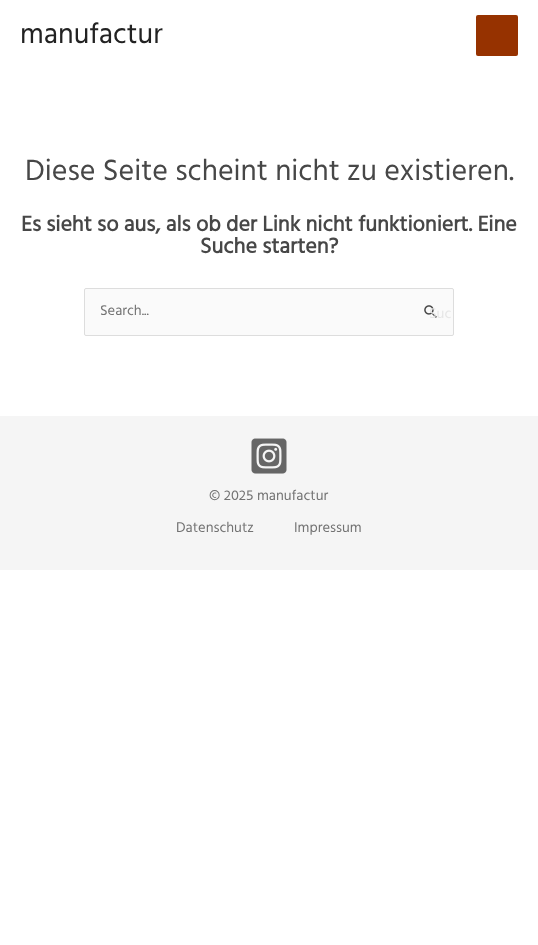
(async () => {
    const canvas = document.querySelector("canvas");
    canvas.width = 538;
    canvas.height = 945;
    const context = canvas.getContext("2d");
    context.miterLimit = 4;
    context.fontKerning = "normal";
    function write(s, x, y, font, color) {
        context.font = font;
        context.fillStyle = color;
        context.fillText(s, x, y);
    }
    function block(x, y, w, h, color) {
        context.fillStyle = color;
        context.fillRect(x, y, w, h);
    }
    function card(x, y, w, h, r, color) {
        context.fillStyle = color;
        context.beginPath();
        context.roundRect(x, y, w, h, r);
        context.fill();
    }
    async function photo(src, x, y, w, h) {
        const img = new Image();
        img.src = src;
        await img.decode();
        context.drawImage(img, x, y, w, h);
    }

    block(0, 0, 538, 945, "rgb(255, 255, 255)");
    write("manufactur", 20, 43, "29px Hind", "rgb(34, 34, 34)");
    card(476, 15, 42, 41, 2, "rgb(150, 50, 0)");
    write("Diese Seite scheint nicht zu existieren.", 25, 180, "30px Hind", "rgb(71, 71, 71)");
    write("Es sieht so aus, als ob der Link nicht funktioniert. Eine", 21, 231, "bold 21.9px Hind", "rgb(71, 71, 71)");
    write("Suche starten?", 200, 253, "bold 21.9px Hind", "rgb(71, 71, 71)");
    context.fillStyle = "rgb(250, 250, 250)";
    context.beginPath();
    context.roundRect(84.5, 288.5, 369, 47, 1.5);
    context.fill();
    context.strokeStyle = "rgb(221, 221, 221)";
    context.stroke();
    write("Search...", 100, 315, "14.5px Hind", "rgb(114, 114, 114)");
    await photo("media/1.png", 424, 305, 13, 13);
    write("Suc", 429, 318, "14.5px Hind", "rgb(230, 230, 230)");
    block(0, 416, 538, 154, "rgb(245, 245, 245)");
    await photo("media/2.png", 251, 438, 36, 36);
    write("© 2025 manufactur", 209, 500, "14.5px Hind", "rgb(114, 114, 114)");
    write("Datenschutz", 176, 532, "14.5px Hind", "rgb(114, 114, 114)");
    write("Impressum", 294, 532, "14.5px Hind", "rgb(114, 114, 114)");
})();
